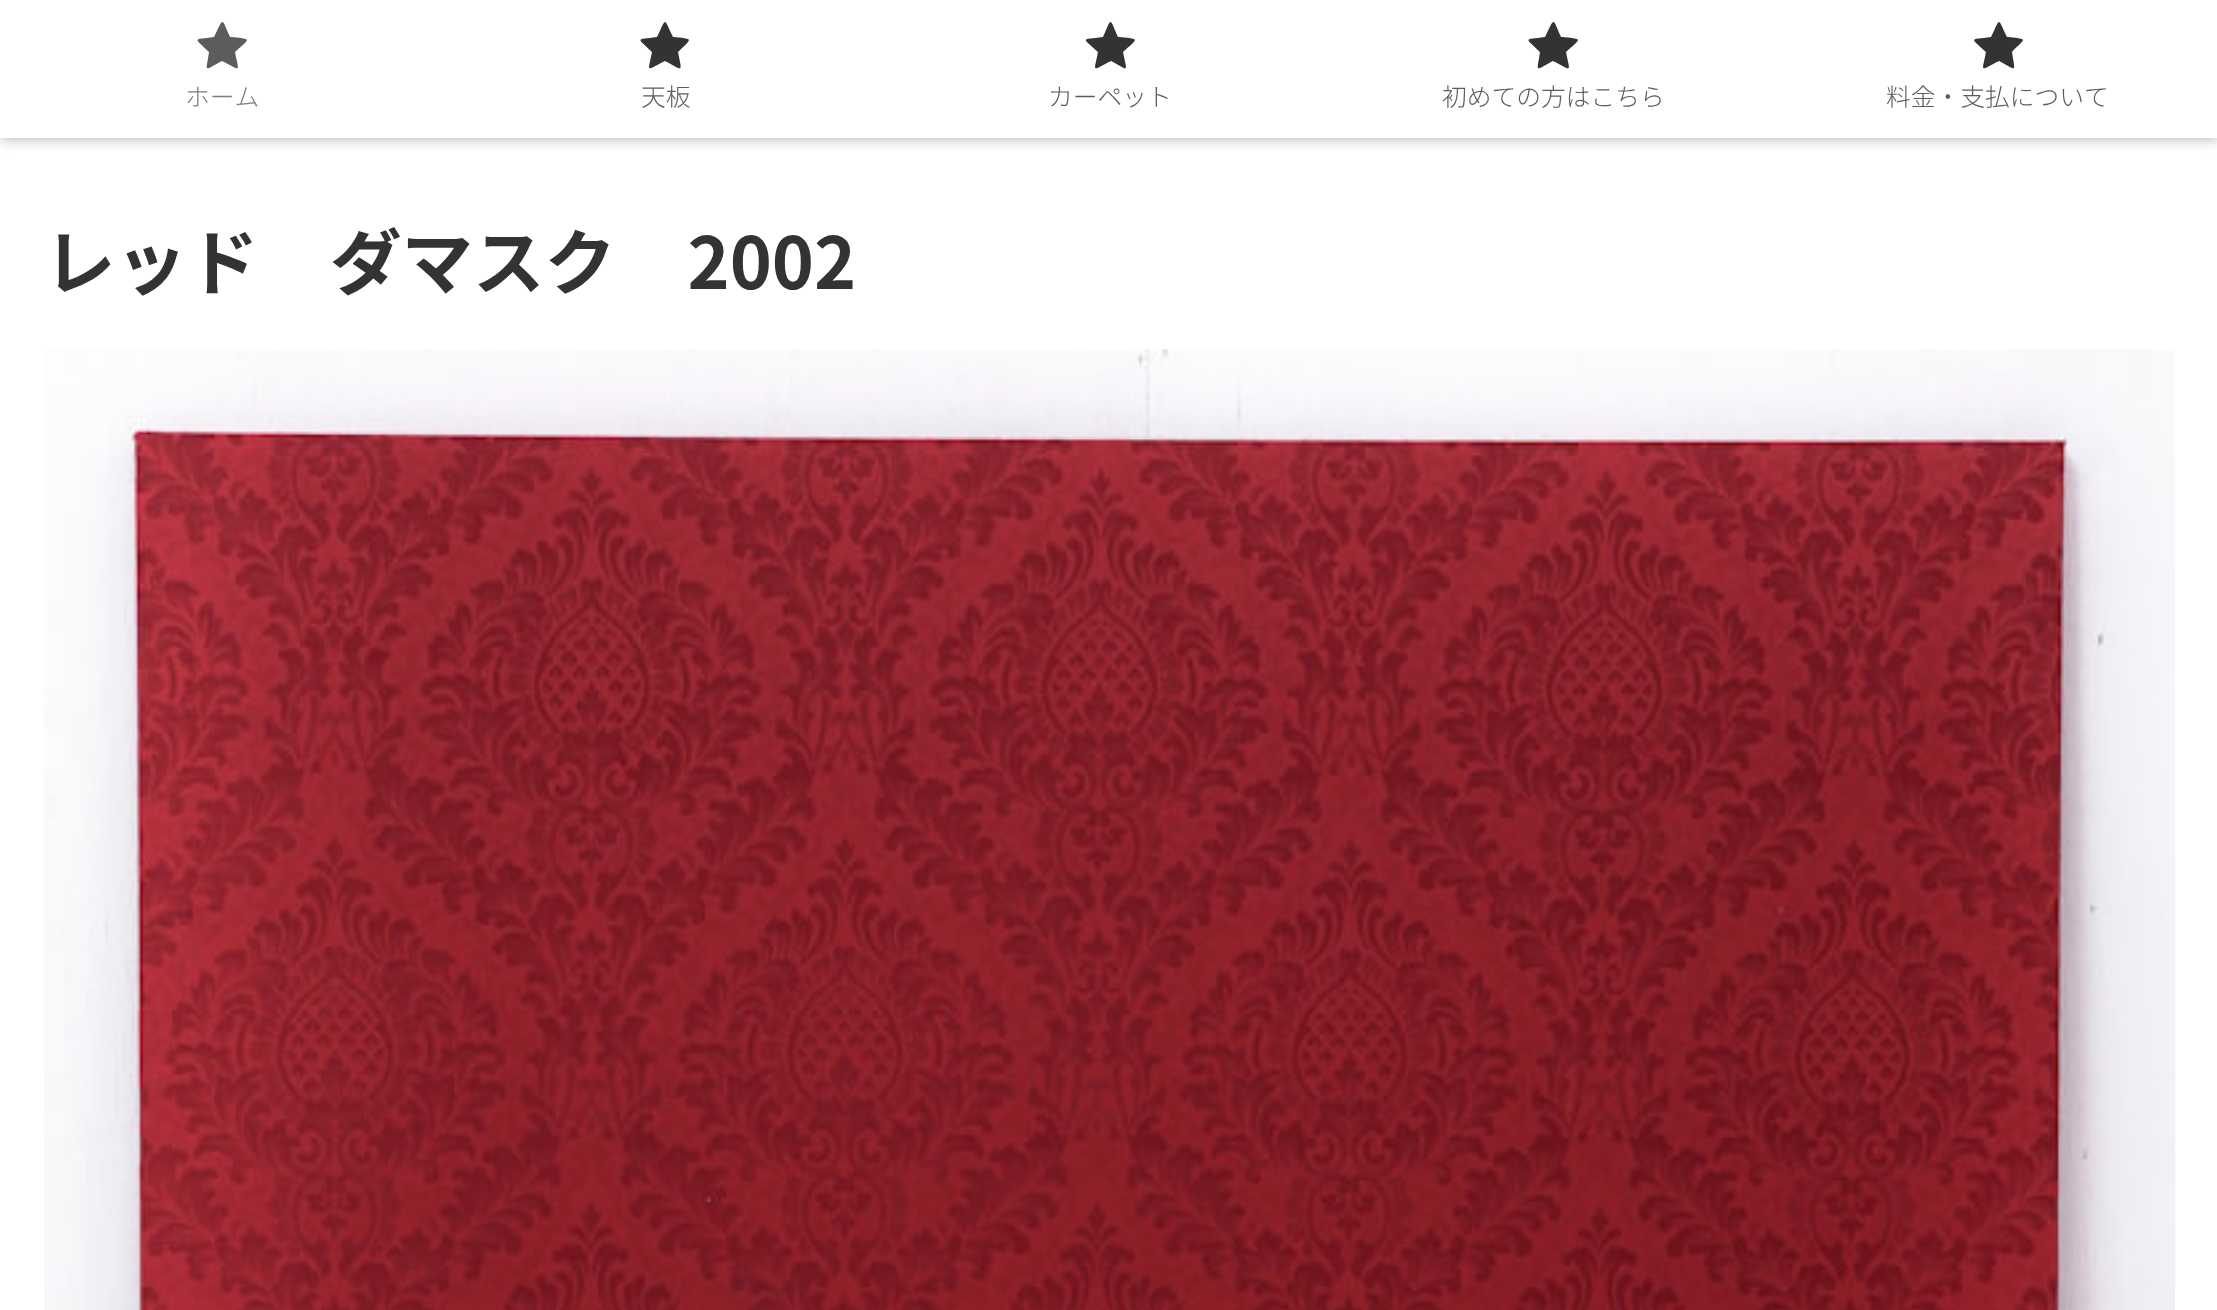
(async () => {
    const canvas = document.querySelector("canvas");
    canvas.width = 2217;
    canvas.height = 1310;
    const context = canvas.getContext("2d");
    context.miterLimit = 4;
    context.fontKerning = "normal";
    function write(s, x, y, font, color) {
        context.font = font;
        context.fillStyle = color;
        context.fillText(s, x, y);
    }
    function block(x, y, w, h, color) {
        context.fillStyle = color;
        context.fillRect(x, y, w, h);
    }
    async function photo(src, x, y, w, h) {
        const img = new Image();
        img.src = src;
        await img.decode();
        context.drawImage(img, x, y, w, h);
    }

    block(0, 0, 2217, 1310, "rgb(255, 255, 255)");
    context.fillStyle = "rgb(169, 169, 169)";
    context.filter = "blur(7px)";
    context.beginPath();
    context.rect(0, 0, 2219, 138);
    context.fill();
    context.filter = "none";
    block(0, 0, 2217, 138, "rgb(255, 255, 255)");
    context.fillStyle = "rgb(92, 92, 92)";
    context.beginPath();
    context.moveTo(247, 40);
    context.bezierCurveTo(247, 42, 237, 50, 235, 52);
    context.bezierCurveTo(239, 73, 242, 71, 222, 61);
    context.bezierCurveTo(203, 71, 206, 73, 209, 52);
    context.bezierCurveTo(194, 37, 192, 40, 214, 37);
    context.bezierCurveTo(224, 17, 221, 17, 230, 37);
    context.bezierCurveTo(233, 37, 247, 38, 247, 40);
    context.closePath();
    context.fill();
    write("ホーム", 185, 106, "300 24.75px Noto Sans JP", "rgb(124, 124, 124)");
    context.fillStyle = "rgb(51, 51, 51)";
    context.beginPath();
    context.moveTo(689, 40);
    context.bezierCurveTo(689, 42, 680, 50, 678, 52);
    context.bezierCurveTo(682, 73, 684, 71, 665, 61);
    context.bezierCurveTo(645, 71, 648, 73, 652, 52);
    context.bezierCurveTo(637, 37, 635, 40, 657, 37);
    context.bezierCurveTo(667, 17, 663, 17, 673, 37);
    context.bezierCurveTo(675, 37, 689, 38, 689, 40);
    context.closePath();
    context.fill();
    write("天板", 641, 106, "300 24.75px Noto Sans JP", "rgb(92, 92, 92)");
    context.fillStyle = "rgb(51, 51, 51)";
    context.beginPath();
    context.moveTo(1135, 40);
    context.bezierCurveTo(1135, 42, 1125, 50, 1123, 52);
    context.bezierCurveTo(1127, 73, 1130, 71, 1111, 61);
    context.bezierCurveTo(1091, 71, 1094, 73, 1098, 52);
    context.bezierCurveTo(1082, 37, 1080, 40, 1103, 37);
    context.bezierCurveTo(1112, 17, 1109, 17, 1118, 37);
    context.bezierCurveTo(1121, 37, 1135, 38, 1135, 40);
    context.closePath();
    context.fill();
    write("カーペット", 1048, 106, "300 24.75px Noto Sans JP", "rgb(92, 92, 92)");
    context.fillStyle = "rgb(51, 51, 51)";
    context.beginPath();
    context.moveTo(1578, 40);
    context.bezierCurveTo(1578, 42, 1568, 50, 1566, 52);
    context.bezierCurveTo(1570, 73, 1573, 71, 1553, 61);
    context.bezierCurveTo(1534, 71, 1537, 73, 1540, 52);
    context.bezierCurveTo(1525, 37, 1523, 40, 1545, 37);
    context.bezierCurveTo(1555, 17, 1552, 17, 1561, 37);
    context.bezierCurveTo(1564, 37, 1578, 38, 1578, 40);
    context.closePath();
    context.fill();
    write("初めての方はこちら", 1442, 106, "300 24.75px Noto Sans JP", "rgb(92, 92, 92)");
    context.fillStyle = "rgb(51, 51, 51)";
    context.beginPath();
    context.moveTo(2023, 40);
    context.bezierCurveTo(2023, 42, 2013, 50, 2012, 52);
    context.bezierCurveTo(2015, 73, 2018, 71, 1999, 61);
    context.bezierCurveTo(1979, 71, 1982, 73, 1986, 52);
    context.bezierCurveTo(1970, 37, 1969, 40, 1991, 37);
    context.bezierCurveTo(2001, 17, 1997, 17, 2007, 37);
    context.bezierCurveTo(2009, 37, 2023, 38, 2023, 40);
    context.closePath();
    context.fill();
    write("料金・支払について", 1886, 106, "300 24.75px Noto Sans JP", "rgb(92, 92, 92)");
    write("レッド　ダマスク　2002", 44, 289, "bold 71.5px Noto Sans JP", "rgb(51, 51, 51)");
    await photo("media/1.png", 44, 349, 2132, 961);
})();
